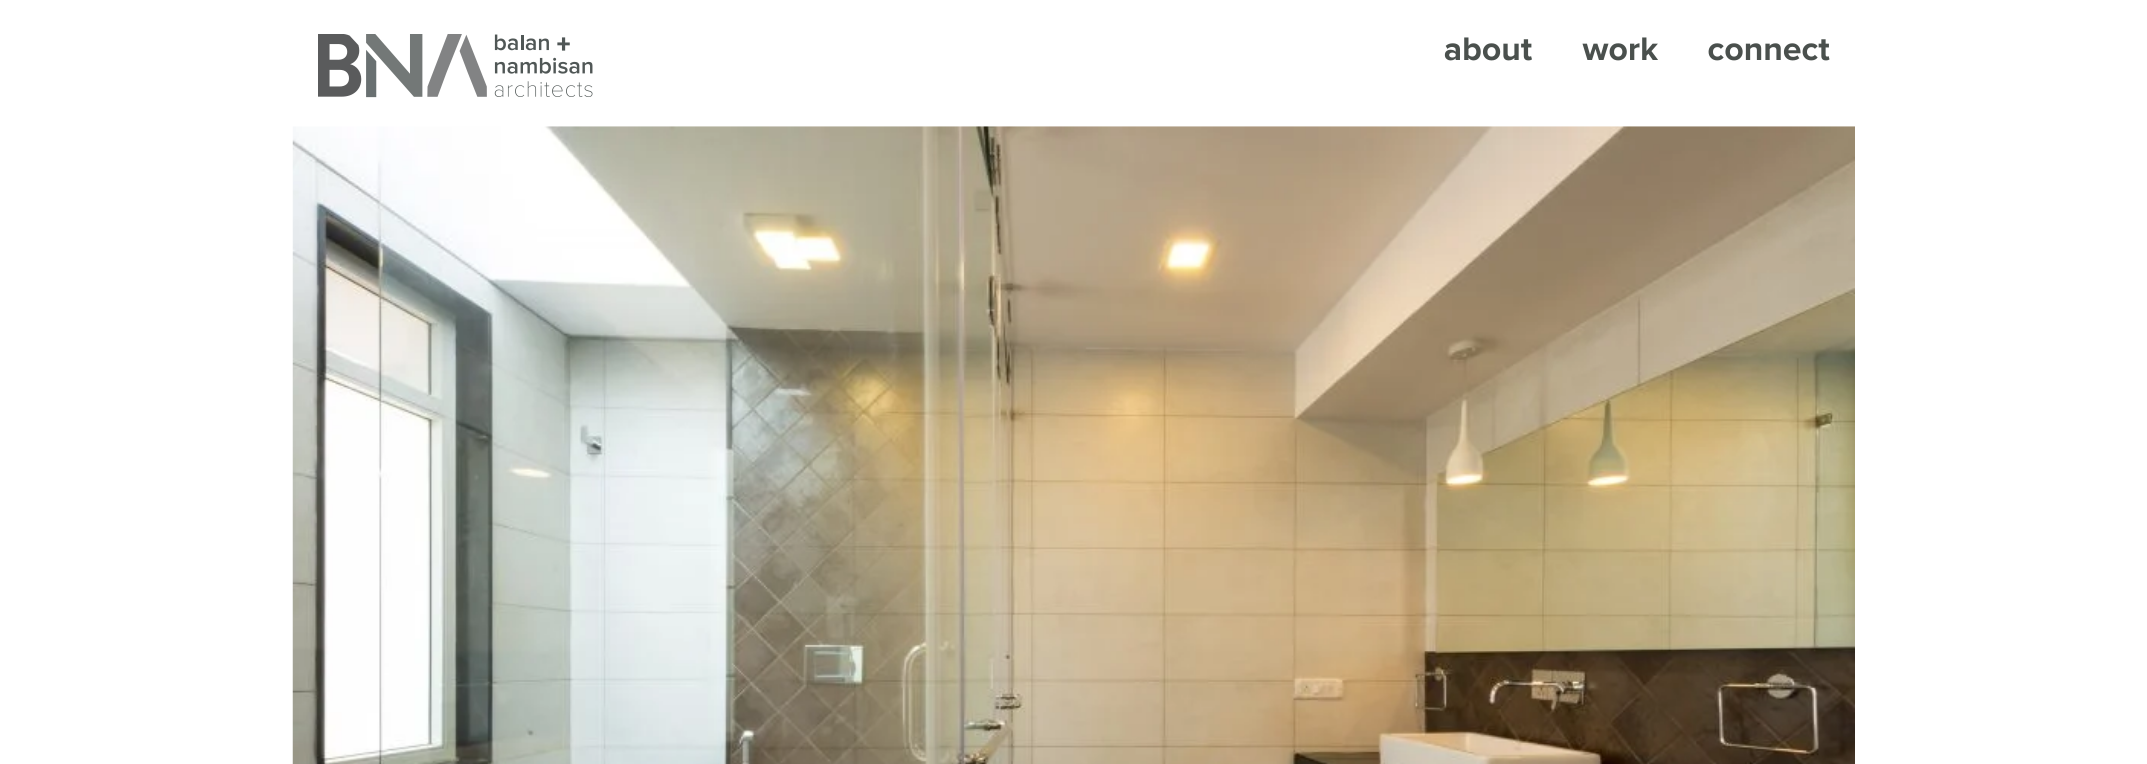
(async () => {
    const canvas = document.querySelector("canvas");
    canvas.width = 2147;
    canvas.height = 764;
    const context = canvas.getContext("2d");
    context.miterLimit = 4;
    context.fontKerning = "normal";
    function block(x, y, w, h, color) {
        context.fillStyle = color;
        context.fillRect(x, y, w, h);
    }
    async function photo(src, x, y, w, h) {
        const img = new Image();
        img.src = src;
        await img.decode();
        context.drawImage(img, x, y, w, h);
    }

    block(0, 0, 2147, 764, "rgb(255, 255, 255)");
    await photo("media/1.png", 318, 34, 275, 64);
    await photo("media/2.png", 1444, 37, 88, 24);
    await photo("media/3.png", 1582, 37, 76, 24);
    await photo("media/4.png", 1708, 39, 122, 22);
    await photo("media/5.png", 292, 126, 1563, 638);
})();
